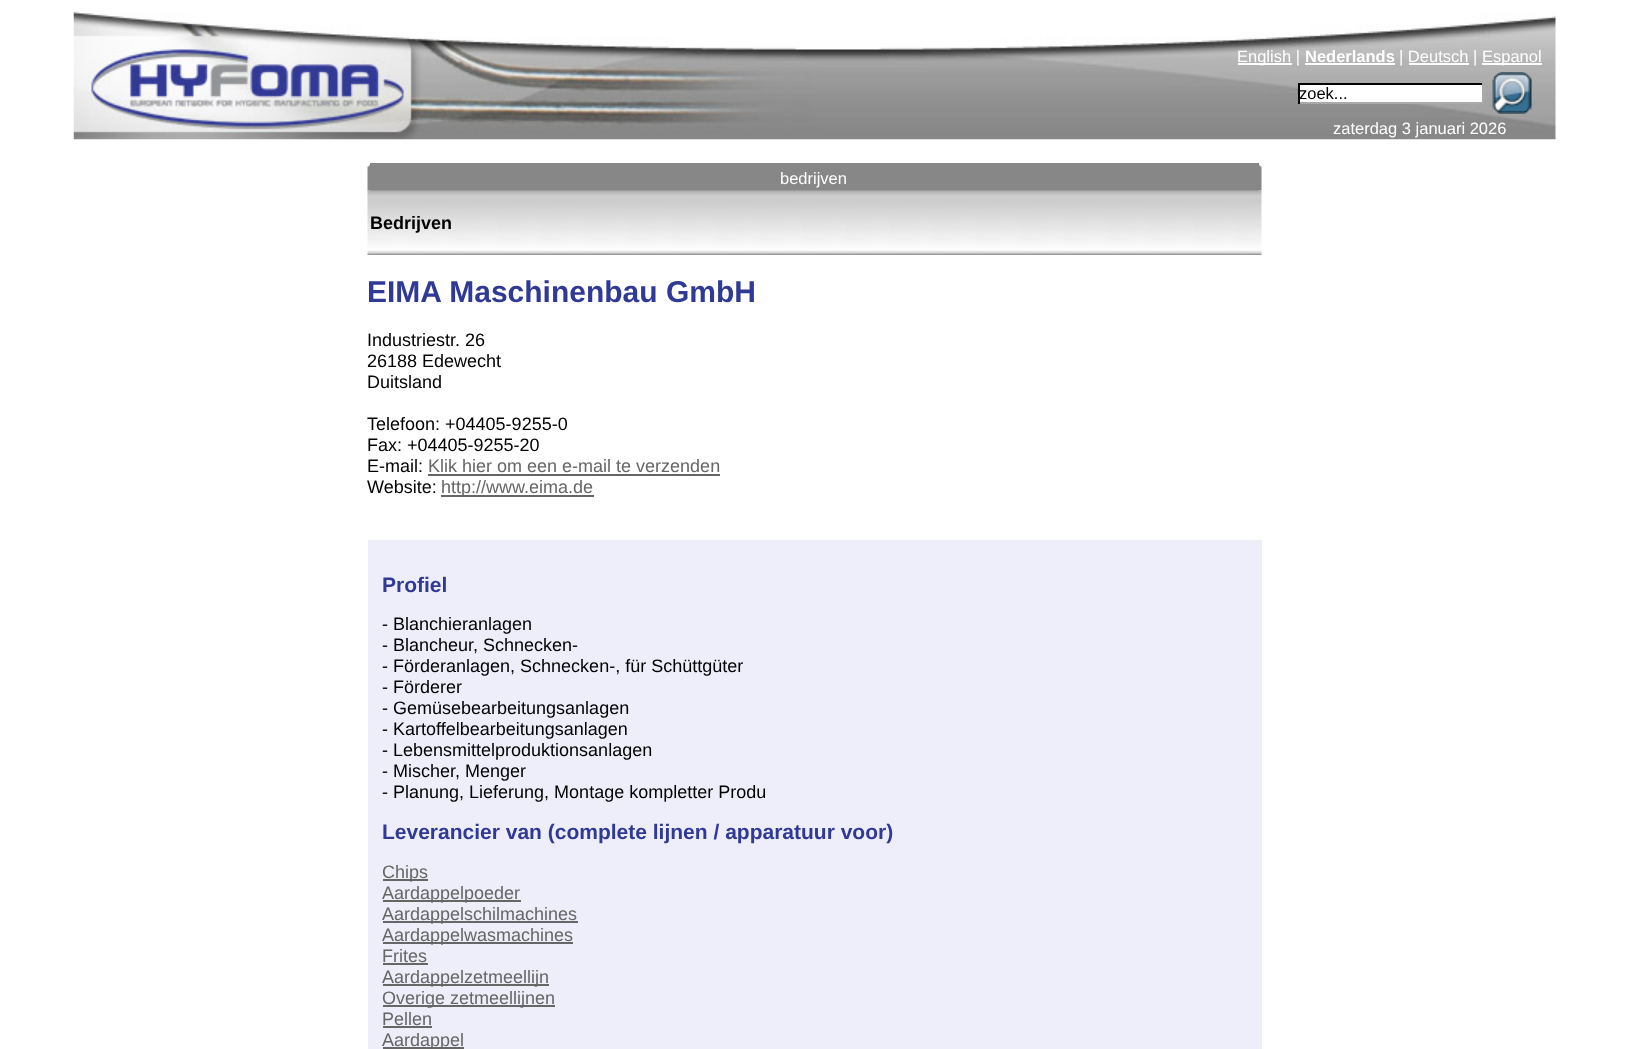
(async () => {
    const canvas = document.querySelector("canvas");
    canvas.width = 1627;
    canvas.height = 1049;
    const context = canvas.getContext("2d");
    context.miterLimit = 4;
    context.fontKerning = "normal";
    function write(s, x, y, font, color) {
        context.font = font;
        context.fillStyle = color;
        context.fillText(s, x, y);
    }
    function block(x, y, w, h, color) {
        context.fillStyle = color;
        context.fillRect(x, y, w, h);
    }
    async function photo(src, x, y, w, h) {
        const img = new Image();
        img.src = src;
        await img.decode();
        context.drawImage(img, x, y, w, h);
    }

    block(0, 0, 1627, 1049, "rgb(255, 255, 255)");
    await photo("media/1.png", 73, 11, 1483, 129);
    block(1238, 63, 54, 2, "rgb(255, 255, 255)");
    write("English |", 1237, 62, "16.5px Liberation Sans", "rgb(255, 255, 255)");
    write("Nederlands", 1305, 62, "bold 16.5px Liberation Sans", "rgb(255, 255, 255)");
    block(1305, 63, 90, 2, "rgb(255, 255, 255)");
    write("| Deutsch |", 1399, 62, "16.5px Liberation Sans", "rgb(255, 255, 255)");
    block(1482, 63, 60, 2, "rgb(255, 255, 255)");
    write("Espanol", 1482, 62, "16.5px Liberation Sans", "rgb(255, 255, 255)");
    block(1409, 63, 60, 2, "rgb(255, 255, 255)");
    block(1300, 85, 182, 17, "rgb(255, 255, 255)");
    block(1298, 83, 186, 2, "rgb(0, 0, 0)");
    block(1482, 83, 2, 21, "rgb(170, 170, 170)");
    block(1298, 102, 186, 2, "rgb(170, 170, 170)");
    block(1298, 83, 2, 21, "rgb(0, 0, 0)");
    write("zoek...", 1299, 99, "16.5px Liberation Sans", "rgb(0, 0, 0)");
    await photo("media/2.png", 1492, 72, 41, 42);
    write("zaterdag 3 januari 2026", 1333, 134, "16.5px Liberation Sans", "rgb(255, 255, 255)");
    await photo("media/3.png", 367, 164, 3, 27);
    block(370, 163, 889, 28, "rgb(135, 135, 135)");
    write("bedrijven", 780, 184, "16.5px Liberation Sans", "rgb(255, 255, 255)");
    await photo("media/4.png", 1259, 164, 3, 27);
    await photo("media/5.png", 367, 190, 895, 65);
    write("Bedrijven", 370, 229, "bold 18px Liberation Sans", "rgb(0, 0, 0)");
    write("EIMA Maschinenbau GmbH", 367, 302, "bold 30px Liberation Sans", "rgb(48, 57, 150)");
    write("Industriestr. 26", 367, 346, "18px Liberation Sans", "rgb(0, 0, 0)");
    write("26188 Edewecht", 367, 367, "18px Liberation Sans", "rgb(0, 0, 0)");
    write("Duitsland", 367, 388, "18px Liberation Sans", "rgb(0, 0, 0)");
    write("Telefoon: +04405-9255-0", 367, 430, "18px Liberation Sans", "rgb(0, 0, 0)");
    write("Fax: +04405-9255-20", 367, 451, "18px Liberation Sans", "rgb(0, 0, 0)");
    write("E-mail:", 367, 472, "18px Liberation Sans", "rgb(0, 0, 0)");
    write("Klik hier om een e-mail te verzenden", 428, 472, "18px Liberation Sans", "rgb(102, 102, 102)");
    block(428, 474, 292, 2, "rgb(102, 102, 102)");
    write("Website:", 367, 493, "18px Liberation Sans", "rgb(0, 0, 0)");
    block(441, 495, 153, 2, "rgb(102, 102, 102)");
    write("http://www.eima.de", 441, 493, "18px Liberation Sans", "rgb(102, 102, 102)");
    block(368, 540, 894, 509, "rgb(237, 238, 250)");
    write("Profiel", 382, 592, "bold 21px Liberation Sans", "rgb(48, 57, 150)");
    write("- Blanchieranlagen", 382, 630, "18px Liberation Sans", "rgb(0, 0, 0)");
    write("- Blancheur, Schnecken-", 382, 651, "18px Liberation Sans", "rgb(0, 0, 0)");
    write("- Förderanlagen, Schnecken-, für Schüttgüter", 382, 672, "18px Liberation Sans", "rgb(0, 0, 0)");
    write("- Förderer", 382, 693, "18px Liberation Sans", "rgb(0, 0, 0)");
    write("- Gemüsebearbeitungsanlagen", 382, 714, "18px Liberation Sans", "rgb(0, 0, 0)");
    write("- Kartoffelbearbeitungsanlagen", 382, 735, "18px Liberation Sans", "rgb(0, 0, 0)");
    write("- Lebensmittelproduktionsanlagen", 382, 756, "18px Liberation Sans", "rgb(0, 0, 0)");
    write("- Mischer, Menger", 382, 777, "18px Liberation Sans", "rgb(0, 0, 0)");
    write("- Planung, Lieferung, Montage kompletter Produ", 382, 798, "18px Liberation Sans", "rgb(0, 0, 0)");
    write("Leverancier van (complete lijnen / apparatuur voor)", 382, 839, "bold 21px Liberation Sans", "rgb(48, 57, 150)");
    block(383, 879, 45, 2, "rgb(102, 102, 102)");
    write("Chips", 382, 878, "18px Liberation Sans", "rgb(102, 102, 102)");
    block(383, 900, 138, 2, "rgb(102, 102, 102)");
    write("Aardappelpoeder", 382, 899, "18px Liberation Sans", "rgb(102, 102, 102)");
    block(383, 921, 195, 2, "rgb(102, 102, 102)");
    write("Aardappelschilmachines", 382, 920, "18px Liberation Sans", "rgb(102, 102, 102)");
    block(383, 942, 190, 2, "rgb(102, 102, 102)");
    write("Aardappelwasmachines", 382, 941, "18px Liberation Sans", "rgb(102, 102, 102)");
    write("Frites", 382, 962, "18px Liberation Sans", "rgb(102, 102, 102)");
    block(383, 963, 45, 2, "rgb(102, 102, 102)");
    block(383, 984, 166, 2, "rgb(102, 102, 102)");
    write("Aardappelzetmeellijn", 382, 983, "18px Liberation Sans", "rgb(102, 102, 102)");
    block(383, 1005, 172, 2, "rgb(102, 102, 102)");
    write("Overige zetmeellijnen", 382, 1004, "18px Liberation Sans", "rgb(102, 102, 102)");
    write("Pellen", 382, 1025, "18px Liberation Sans", "rgb(102, 102, 102)");
    block(383, 1026, 49, 2, "rgb(102, 102, 102)");
    block(383, 1047, 81, 2, "rgb(102, 102, 102)");
    write("Aardappel", 382, 1046, "18px Liberation Sans", "rgb(102, 102, 102)");
})();
